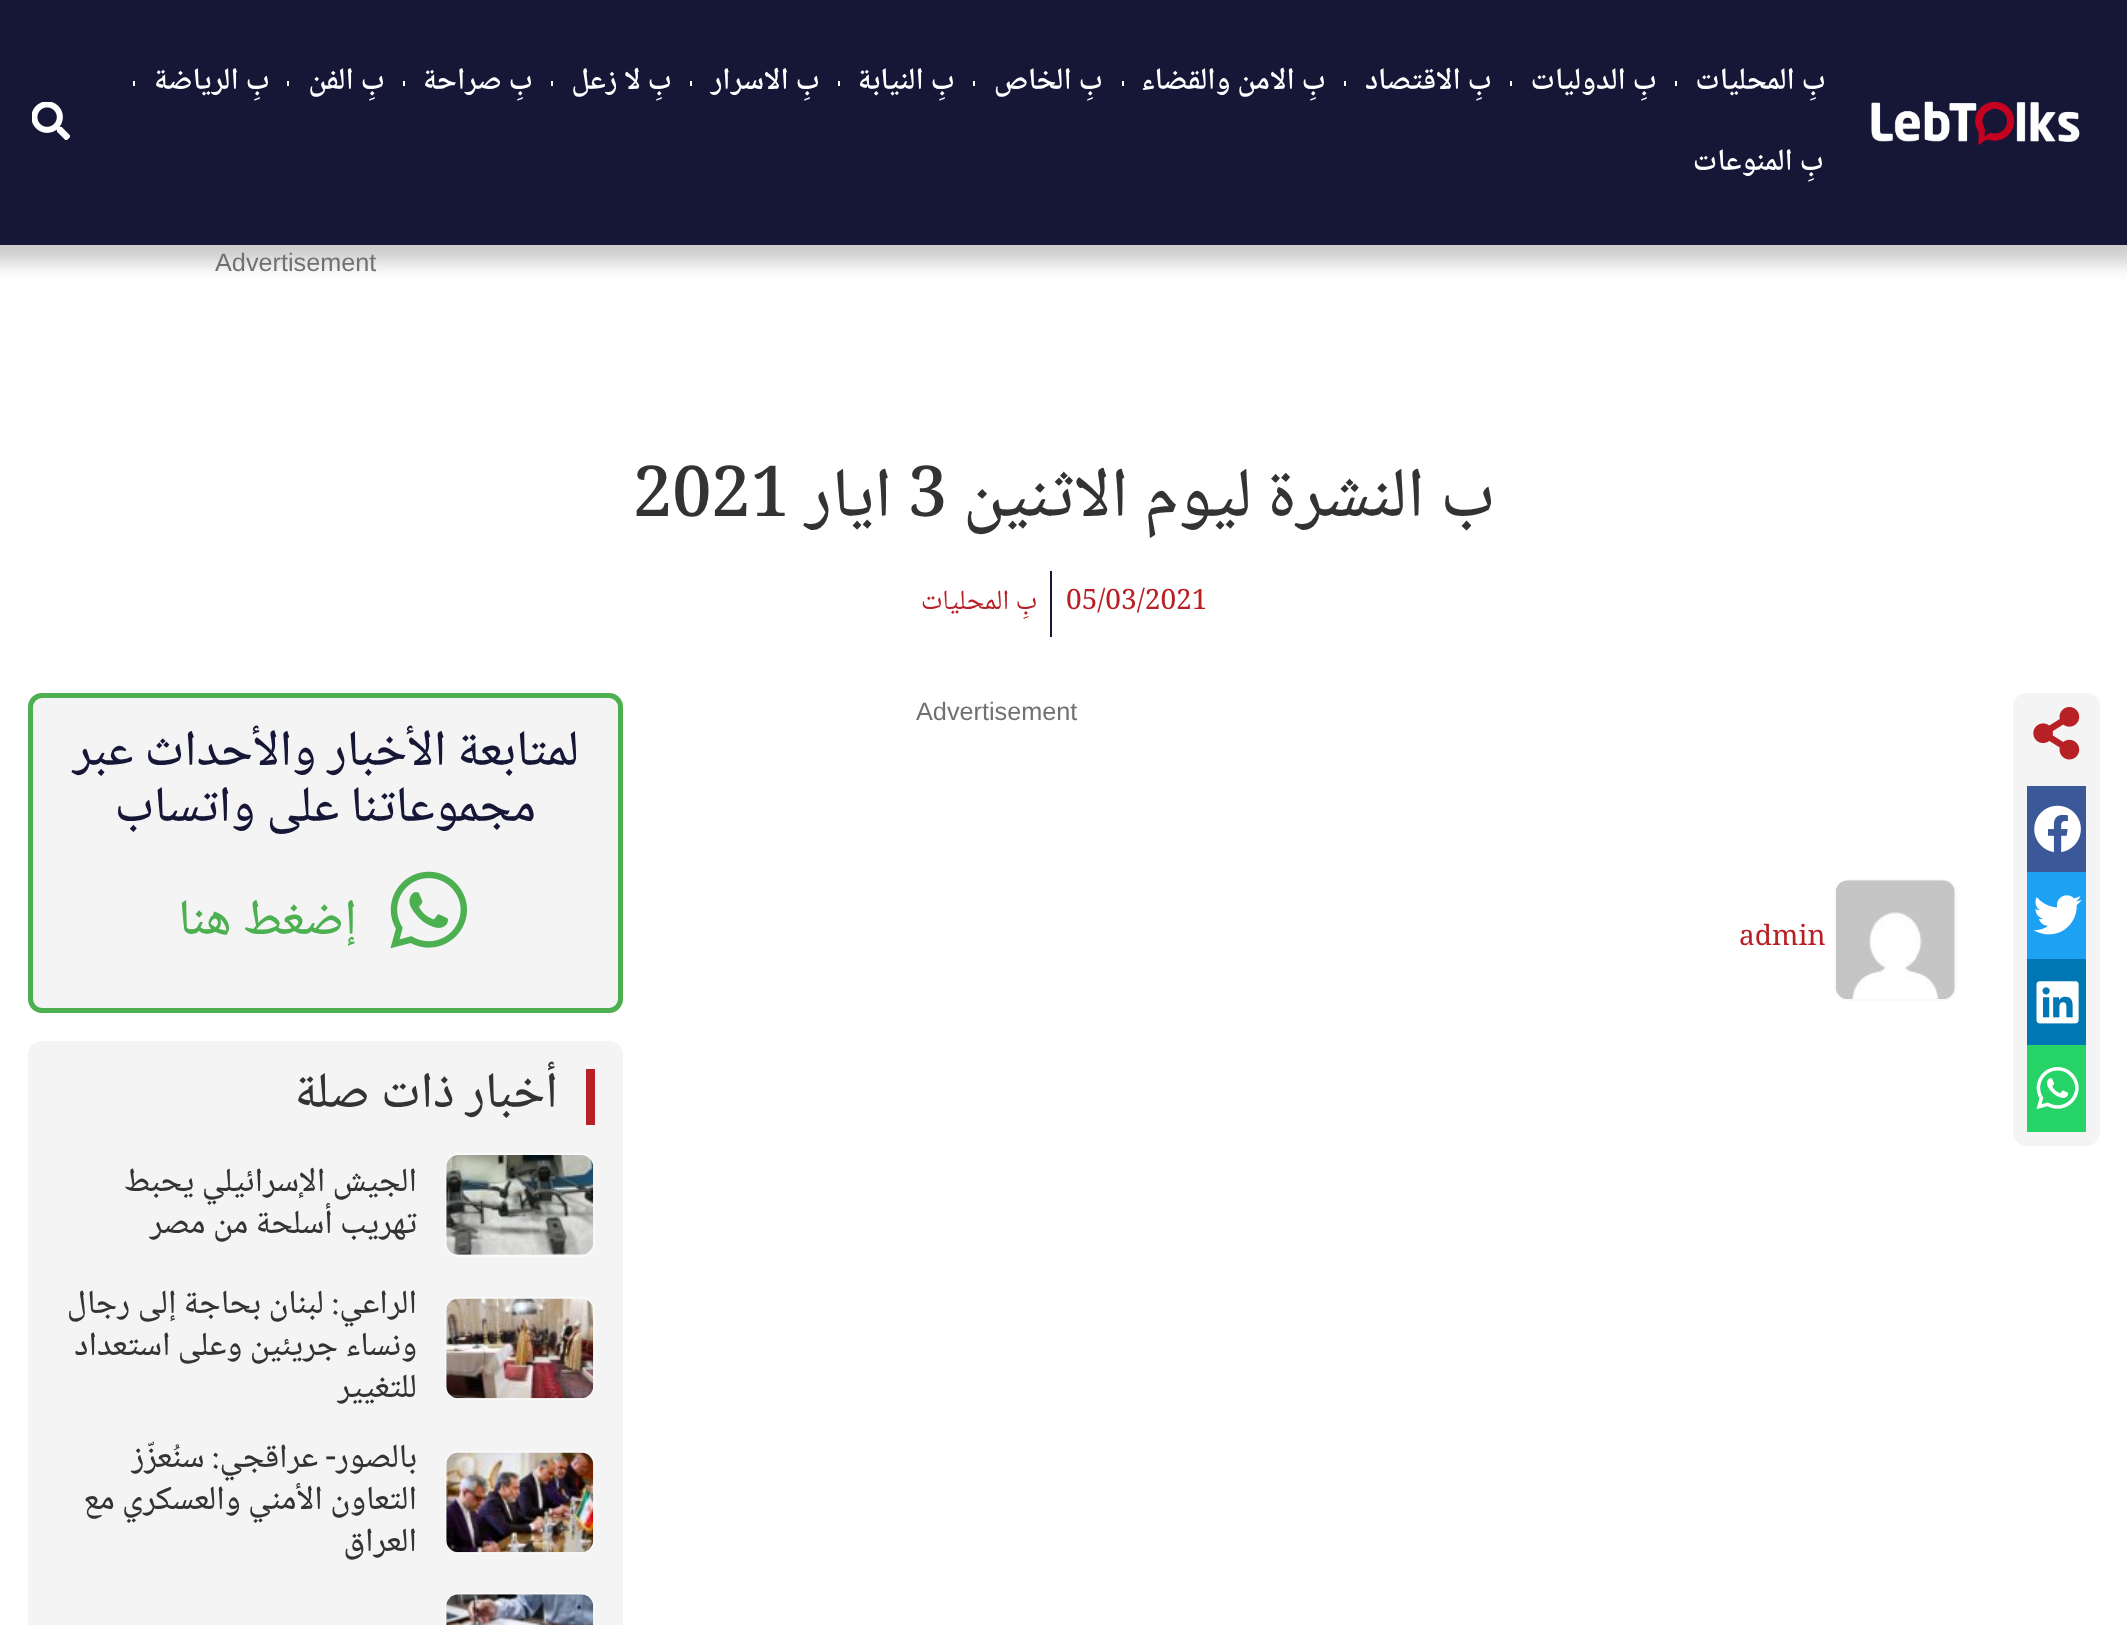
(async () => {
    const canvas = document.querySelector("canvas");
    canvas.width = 2127;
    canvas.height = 1625;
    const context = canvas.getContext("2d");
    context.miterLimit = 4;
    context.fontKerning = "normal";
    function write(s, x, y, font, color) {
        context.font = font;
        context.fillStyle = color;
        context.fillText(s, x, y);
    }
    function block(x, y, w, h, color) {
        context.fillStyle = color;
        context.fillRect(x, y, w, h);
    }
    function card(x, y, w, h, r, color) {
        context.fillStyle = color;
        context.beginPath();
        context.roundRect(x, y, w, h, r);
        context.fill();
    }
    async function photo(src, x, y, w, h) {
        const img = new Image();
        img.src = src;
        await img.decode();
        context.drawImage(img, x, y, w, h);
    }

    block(0, 0, 2127, 1625, "rgb(255, 255, 255)");
    context.fillStyle = "rgba(0, 0, 0, 0.2)";
    context.filter = "blur(9px)";
    context.beginPath();
    context.rect(-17, -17, 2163, 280);
    context.fill();
    context.filter = "none";
    block(0, 0, 2127, 245, "rgb(22, 22, 55)");
    await photo("media/1.png", 1871, 101, 209, 45);
    context.direction = "rtl";
    write("بِ المحليات", 1826, 89, "600 30.75px Noto Naskh Arabic", "rgb(255, 255, 255)");
    block(1675, 81, 2, 5, "rgb(255, 255, 255)");
    write("بِ الدوليات", 1657, 89, "600 30.75px Noto Naskh Arabic", "rgb(255, 255, 255)");
    block(1510, 81, 2, 5, "rgb(255, 255, 255)");
    write("بِ الاقتصاد", 1492, 89, "600 30.75px Noto Naskh Arabic", "rgb(255, 255, 255)");
    block(1344, 81, 2, 5, "rgb(255, 255, 255)");
    write("بِ الامن والقضاء", 1326, 89, "600 30.75px Noto Naskh Arabic", "rgb(255, 255, 255)");
    block(1122, 81, 2, 5, "rgb(255, 255, 255)");
    write("بِ الخاص", 1103, 89, "600 30.75px Noto Naskh Arabic", "rgb(255, 255, 255)");
    block(973, 81, 2, 5, "rgb(255, 255, 255)");
    write("بِ النيابة", 955, 89, "600 30.75px Noto Naskh Arabic", "rgb(255, 255, 255)");
    block(838, 81, 2, 5, "rgb(255, 255, 255)");
    write("بِ الاسرار", 820, 89, "600 30.75px Noto Naskh Arabic", "rgb(255, 255, 255)");
    block(690, 81, 2, 5, "rgb(255, 255, 255)");
    write("بِ لا زعل", 672, 89, "600 30.75px Noto Naskh Arabic", "rgb(255, 255, 255)");
    block(551, 81, 2, 5, "rgb(255, 255, 255)");
    write("بِ صراحة", 533, 89, "600 30.75px Noto Naskh Arabic", "rgb(255, 255, 255)");
    block(403, 81, 2, 5, "rgb(255, 255, 255)");
    write("بِ الفن", 385, 89, "600 30.75px Noto Naskh Arabic", "rgb(255, 255, 255)");
    block(287, 81, 2, 5, "rgb(255, 255, 255)");
    write("بِ الرياضة", 270, 89, "600 30.75px Noto Naskh Arabic", "rgb(255, 255, 255)");
    block(133, 81, 2, 5, "rgb(255, 255, 255)");
    write("بِ المنوعات", 1824, 170, "600 30.75px Noto Naskh Arabic", "rgb(255, 255, 255)");
    await photo("media/2.png", 32, 102, 38, 38);
    context.direction = "ltr";
    write("Advertisement", 215, 271, "25.25px Liberation Sans", "rgb(113, 113, 113)");
    context.direction = "rtl";
    write("ب النشرة ليوم الاثنين", 1495, 516, "500 70px Noto Naskh Arabic", "rgb(51, 51, 51)");
    context.direction = "ltr";
    write("3", 908, 516, "500 70px Noto Naskh Arabic", "rgb(51, 51, 51)");
    context.direction = "rtl";
    write("ايار", 892, 516, "500 70px Noto Naskh Arabic", "rgb(51, 51, 51)");
    context.direction = "ltr";
    write("2021", 633, 516, "500 70px Noto Naskh Arabic", "rgb(51, 51, 51)");
    write("05/03/2021", 1066, 609, "28px Noto Naskh Arabic", "rgb(183, 32, 37)");
    block(1050, 571, 2, 66, "rgb(22, 22, 55)");
    context.direction = "rtl";
    write("بِ المحليات", 1037, 609, "28px Noto Naskh Arabic", "rgb(183, 32, 37)");
    card(2013, 693, 87, 453, 14, "rgb(244, 244, 244)");
    await photo("media/3.png", 2033, 707, 47, 53);
    block(2027, 786, 59, 86, "rgb(59, 89, 152)");
    await photo("media/4.png", 2034, 805, 47, 47);
    block(2027, 872, 59, 87, "rgb(29, 161, 242)");
    await photo("media/5.png", 2034, 895, 48, 40);
    block(2027, 959, 59, 86, "rgb(0, 119, 181)");
    await photo("media/6.png", 2036, 981, 43, 43);
    block(2027, 1045, 59, 87, "rgb(37, 211, 102)");
    await photo("media/7.png", 2036, 1067, 43, 43);
    context.direction = "ltr";
    write("Advertisement", 916, 720, "25.25px Liberation Sans", "rgb(113, 113, 113)");
    context.beginPath();
    context.roundRect(1835, 880, 121, 120, 13);
    context.strokeStyle = "rgb(249, 249, 249)";
    context.lineWidth = 2;
    context.stroke();
    await photo("media/8.png", 1836, 880, 119, 119);
    write("admin", 1739, 945, "28px Noto Naskh Arabic", "rgb(183, 32, 37)");
    context.fillStyle = "rgb(244, 244, 244)";
    context.beginPath();
    context.roundRect(30.5, 695.5, 590, 315, 11.5);
    context.fill();
    context.strokeStyle = "rgb(76, 175, 80)";
    context.lineWidth = 5;
    context.stroke();
    context.direction = "rtl";
    write("لمتابعة الأخبار والأحداث عبر", 579, 765, "500 50.4px Noto Naskh Arabic", "rgb(22, 22, 55)");
    write("مجموعاتنا على واتساب", 536, 821, "500 50.4px Noto Naskh Arabic", "rgb(22, 22, 55)");
    await photo("media/9.png", 390, 871, 77, 78);
    write("إضغط هنا", 357, 934, "500 50.4px Noto Naskh Arabic", "rgb(76, 175, 80)");
    card(28, 1041, 595, 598, 14, "rgb(244, 244, 244)");
    block(586, 1069, 9, 56, "rgb(183, 32, 37)");
    write("أخبار ذات صلة", 558, 1107, "500 50.4px Noto Naskh Arabic", "rgb(51, 51, 51)");
    context.beginPath();
    context.roundRect(446, 1154, 148, 102, 13);
    context.strokeStyle = "rgb(249, 249, 249)";
    context.lineWidth = 2;
    context.stroke();
    await photo("media/10.png", 446, 1155, 148, 100);
    write("الجيش الإسرائيلي يحبط", 417, 1191, "500 33.6px Noto Naskh Arabic", "rgb(51, 51, 51)");
    write("تهريب أسلحة من مصر", 417, 1233, "500 33.6px Noto Naskh Arabic", "rgb(51, 51, 51)");
    context.beginPath();
    context.roundRect(446, 1298, 148, 101, 13);
    context.stroke();
    await photo("media/11.png", 446, 1298, 148, 101);
    write("الراعي: لبنان بحاجة إلى رجال", 417, 1313, "500 33.6px Noto Naskh Arabic", "rgb(51, 51, 51)");
    write("ونساء جريئين وعلى استعداد", 417, 1355, "500 33.6px Noto Naskh Arabic", "rgb(51, 51, 51)");
    write("للتغيير", 417, 1397, "500 33.6px Noto Naskh Arabic", "rgb(51, 51, 51)");
    context.beginPath();
    context.roundRect(446, 1452, 148, 101, 13);
    context.stroke();
    await photo("media/12.png", 446, 1452, 148, 101);
    write("بالصور- عراقجي: سنُعزّز", 417, 1467, "500 33.6px Noto Naskh Arabic", "rgb(51, 51, 51)");
    write("التعاون الأمني والعسكري مع", 417, 1509, "500 33.6px Noto Naskh Arabic", "rgb(51, 51, 51)");
    write("العراق", 417, 1551, "500 33.6px Noto Naskh Arabic", "rgb(51, 51, 51)");
    context.beginPath();
    context.roundRect(446, 1594, 148, 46, 13);
    context.stroke();
    await photo("media/13.png", 446, 1594, 148, 31);
})();
